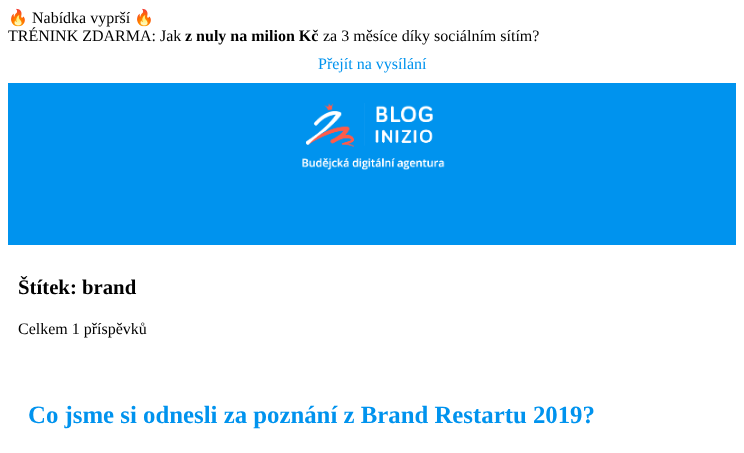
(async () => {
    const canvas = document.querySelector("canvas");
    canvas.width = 744;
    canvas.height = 453;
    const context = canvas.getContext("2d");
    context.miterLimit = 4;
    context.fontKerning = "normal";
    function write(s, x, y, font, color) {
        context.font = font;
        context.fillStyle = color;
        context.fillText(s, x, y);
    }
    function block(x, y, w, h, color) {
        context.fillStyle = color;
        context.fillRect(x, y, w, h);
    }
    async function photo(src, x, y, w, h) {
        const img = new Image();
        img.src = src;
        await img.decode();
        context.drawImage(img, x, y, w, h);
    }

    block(0, 0, 744, 453, "rgb(255, 255, 255)");
    write("🔥", 8, 23, "16px Noto Color Emoji", "rgb(0, 0, 0)");
    write("Nabídka vyprší", 32, 23, "16px Liberation Serif", "rgb(0, 0, 0)");
    write("🔥", 134, 23, "16px Noto Color Emoji", "rgb(0, 0, 0)");
    write("TRÉNINK ZDARMA: Jak", 8, 41, "16px Liberation Serif", "rgb(0, 0, 0)");
    write("z nuly na milion Kč", 185, 41, "bold 16px Liberation Serif", "rgb(0, 0, 0)");
    write("za 3 měsíce díky sociálním sítím?", 323, 41, "16px Liberation Serif", "rgb(0, 0, 0)");
    write("Přejít na vysílání", 318, 69, "16px Liberation Serif", "rgb(0, 147, 238)");
    block(8, 83, 728, 162, "rgb(0, 147, 238)");
    await photo("media/1.png", 302, 103, 143, 67);
    write("Štítek: brand", 18, 294, "bold 20.75px Liberation Serif", "rgb(0, 0, 0)");
    write("Celkem 1 příspěvků", 18, 334, "16px Liberation Serif", "rgb(0, 0, 0)");
    write("Co jsme si odnesli za poznání z Brand Restartu 2019?", 28, 423, "bold 24.8px Liberation Serif", "rgb(0, 147, 238)");
})();
